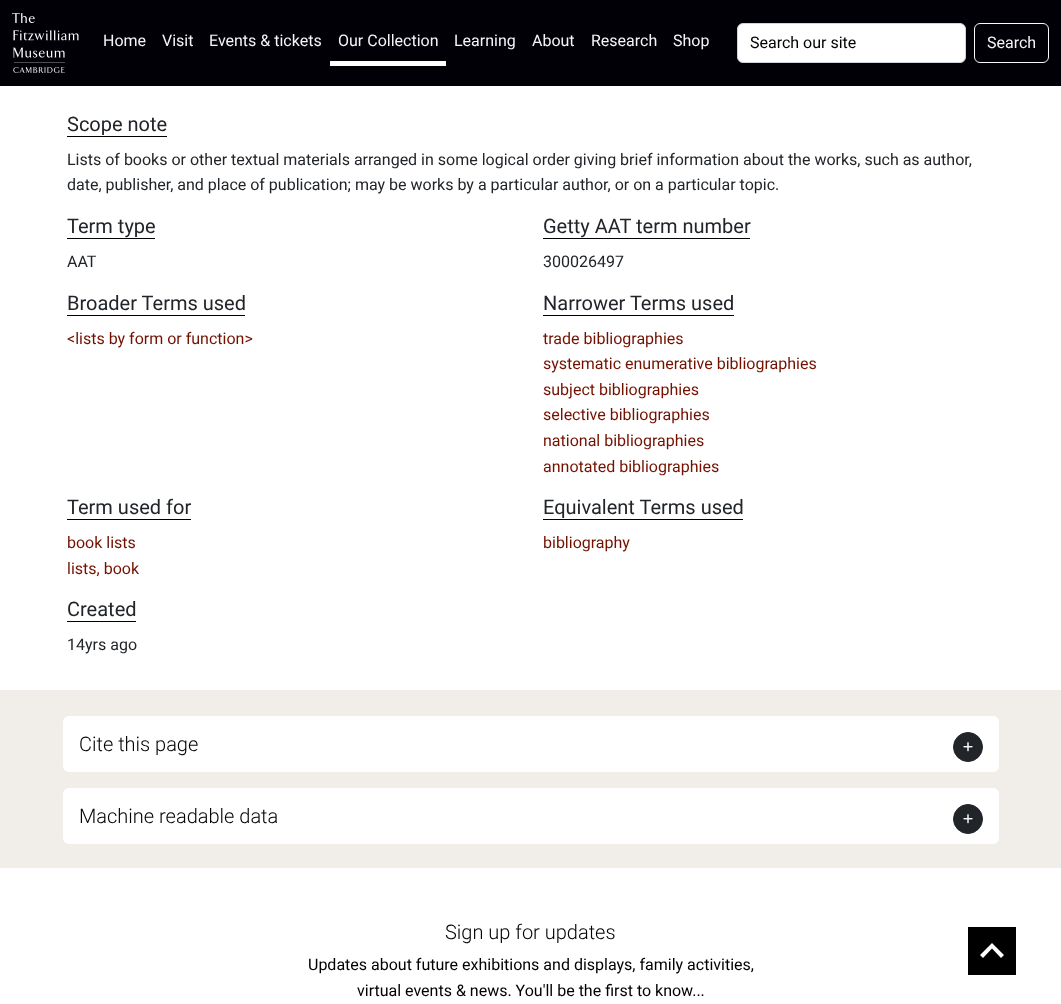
(async () => {
    const canvas = document.querySelector("canvas");
    canvas.width = 1061;
    canvas.height = 1004;
    const context = canvas.getContext("2d");
    context.miterLimit = 4;
    context.fontKerning = "normal";
    function write(s, x, y, font, color) {
        context.font = font;
        context.fillStyle = color;
        context.fillText(s, x, y);
    }
    function block(x, y, w, h, color) {
        context.fillStyle = color;
        context.fillRect(x, y, w, h);
    }
    function card(x, y, w, h, r, color) {
        context.fillStyle = color;
        context.beginPath();
        context.roundRect(x, y, w, h, r);
        context.fill();
    }
    async function photo(src, x, y, w, h) {
        const img = new Image();
        img.src = src;
        await img.decode();
        context.drawImage(img, x, y, w, h);
    }

    block(0, 0, 1061, 1004, "rgb(255, 255, 255)");
    block(0, 0, 1061, 86, "rgb(1, 0, 7)");
    await photo("media/1.png", 12, 13, 67, 60);
    write("Home", 103, 46, "16px Roboto", "rgb(245, 245, 245)");
    write("Visit", 162, 46, "16px Roboto", "rgb(245, 245, 245)");
    write("Events & tickets", 209, 46, "16px Roboto", "rgb(245, 245, 245)");
    block(330, 61, 116, 5, "rgb(255, 255, 255)");
    write("Our Collection", 338, 46, "16px Roboto", "rgb(245, 245, 245)");
    write("Learning", 454, 46, "16px Roboto", "rgb(245, 245, 245)");
    write("About", 532, 46, "16px Roboto", "rgb(245, 245, 245)");
    write("Research", 591, 46, "16px Roboto", "rgb(245, 245, 245)");
    write("Shop", 673, 46, "16px Roboto", "rgb(245, 245, 245)");
    context.fillStyle = "rgb(255, 255, 255)";
    context.beginPath();
    context.roundRect(737.5, 23.5, 228, 39, 5.5);
    context.fill();
    context.strokeStyle = "rgb(206, 212, 218)";
    context.stroke();
    write("Search our site", 750, 48, "16px Roboto", "rgb(0, 0, 0)");
    context.beginPath();
    context.roundRect(974.5, 23.5, 74, 39, 5.5);
    context.strokeStyle = "rgb(248, 249, 250)";
    context.stroke();
    write("Search", 987, 48, "16px Roboto", "rgb(245, 245, 245)");
    block(67, 136, 100, 1, "rgb(0, 0, 0)");
    write("Scope note", 67, 131, "20px Roboto", "rgb(33, 37, 41)");
    write("Lists of books or other textual materials arranged in some logical order giving brief information about the works, such as author,", 67, 165, "16px Roboto", "rgb(33, 37, 41)");
    write("date, publisher, and place of publication; may be works by a particular author, or on a particular topic.", 67, 190, "16px Roboto", "rgb(33, 37, 41)");
    block(67, 238, 88, 1, "rgb(0, 0, 0)");
    write("Term type", 67, 233, "20px Roboto", "rgb(33, 37, 41)");
    write("AAT", 67, 267, "16px Roboto", "rgb(33, 37, 41)");
    block(543, 238, 207, 1, "rgb(0, 0, 0)");
    write("Getty AAT term number", 543, 233, "20px Roboto", "rgb(33, 37, 41)");
    write("300026497", 543, 267, "16px Roboto", "rgb(33, 37, 41)");
    block(67, 315, 178, 1, "rgb(0, 0, 0)");
    write("Broader Terms used", 67, 310, "20px Roboto", "rgb(33, 37, 41)");
    write("<lists by form or function>", 67, 344, "16px Roboto", "rgb(115, 17, 0)");
    block(543, 315, 191, 1, "rgb(0, 0, 0)");
    write("Narrower Terms used", 543, 310, "20px Roboto", "rgb(33, 37, 41)");
    write("trade bibliographies", 543, 344, "16px Roboto", "rgb(115, 17, 0)");
    write("systematic enumerative bibliographies", 543, 369, "16px Roboto", "rgb(115, 17, 0)");
    write("subject bibliographies", 543, 395, "16px Roboto", "rgb(115, 17, 0)");
    write("selective bibliographies", 543, 420, "16px Roboto", "rgb(115, 17, 0)");
    write("national bibliographies", 543, 446, "16px Roboto", "rgb(115, 17, 0)");
    write("annotated bibliographies", 543, 472, "16px Roboto", "rgb(115, 17, 0)");
    block(67, 519, 124, 1, "rgb(0, 0, 0)");
    write("Term used for", 67, 514, "20px Roboto", "rgb(33, 37, 41)");
    write("book lists", 67, 548, "16px Roboto", "rgb(115, 17, 0)");
    write("lists, book", 67, 574, "16px Roboto", "rgb(115, 17, 0)");
    block(543, 519, 200, 1, "rgb(0, 0, 0)");
    write("Equivalent Terms used", 543, 514, "20px Roboto", "rgb(33, 37, 41)");
    write("bibliography", 543, 548, "16px Roboto", "rgb(115, 17, 0)");
    block(67, 621, 69, 1, "rgb(0, 0, 0)");
    write("Created", 67, 616, "20px Roboto", "rgb(33, 37, 41)");
    write("14yrs ago", 67, 650, "16px Roboto", "rgb(33, 37, 41)");
    block(0, 690, 1061, 178, "rgb(241, 238, 234)");
    card(63, 716, 936, 56, 6, "rgb(255, 255, 255)");
    write("Cite this page", 79, 751, "300 20px Roboto", "rgb(0, 0, 0)");
    context.fillStyle = "rgb(33, 37, 41)";
    context.beginPath();
    context.arc(968, 747, 14.5, 0, Math.PI * 2);
    context.fill();
    context.strokeStyle = "rgb(33, 37, 41)";
    context.stroke();
    await photo("media/2.png", 963, 742, 10, 10);
    card(63, 788, 936, 56, 6, "rgb(255, 255, 255)");
    write("Machine readable data", 79, 823, "300 20px Roboto", "rgb(0, 0, 0)");
    context.fillStyle = "rgb(33, 37, 41)";
    context.beginPath();
    context.arc(968, 819, 14.5, 0, Math.PI * 2);
    context.fill();
    context.stroke();
    await photo("media/2.png", 963, 814, 10, 10);
    write("Sign up for updates", 445, 939, "300 20px Roboto", "rgb(0, 0, 0)");
    write("Updates about future exhibitions and displays, family activities,", 308, 970, "16px Roboto", "rgb(0, 0, 0)");
    write("virtual events & news. You'll be the first to know...", 357, 996, "16px Roboto", "rgb(0, 0, 0)");
    block(968, 927, 48, 48, "rgb(0, 0, 0)");
    context.fillStyle = "rgb(255, 255, 255)";
    context.beginPath();
    context.moveTo(983, 958);
    context.lineTo(992, 948.5);
    context.lineTo(1001, 958);
    context.lineTo(1004, 955);
    context.lineTo(992, 943);
    context.lineTo(980, 955);
    context.closePath();
    context.fill();
})();
